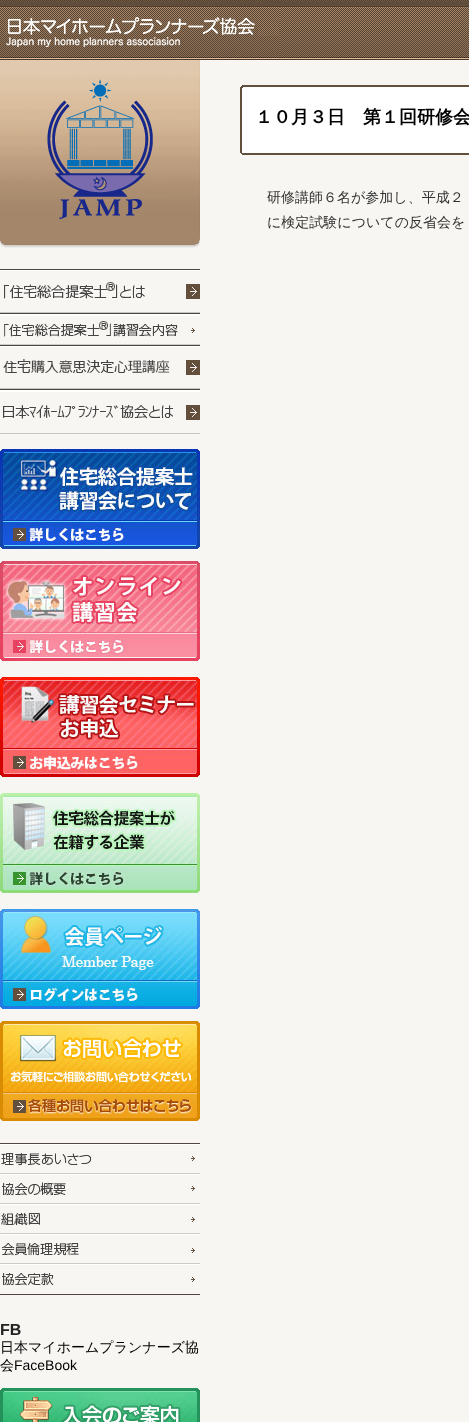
(async () => {
    const canvas = document.querySelector("canvas");
    canvas.width = 469;
    canvas.height = 1422;
    const context = canvas.getContext("2d");
    context.miterLimit = 4;
    context.fontKerning = "normal";
    function write(s, x, y, font, color) {
        context.font = font;
        context.fillStyle = color;
        context.fillText(s, x, y);
    }
    function block(x, y, w, h, color) {
        context.fillStyle = color;
        context.fillRect(x, y, w, h);
    }
    async function photo(src, x, y, w, h) {
        const img = new Image();
        img.src = src;
        await img.decode();
        context.drawImage(img, x, y, w, h);
    }

    block(0, 0, 469, 1422, "rgb(247, 246, 242)");
    await photo("media/1.png", 280, 0, 189, 60);
    await photo("media/2.png", 0, 0, 280, 60);
    await photo("media/3.png", 240, 85, 229, 70);
    write("１０月３日　第１回研修会", 255, 123, "bold 18px WenQuanYi Zen Hei", "rgb(0, 0, 0)");
    write("研修講師６名が参加し、平成２", 267, 202, "500 14px WenQuanYi Zen Hei", "rgb(51, 51, 51)");
    write("に検定試験についての反省会を", 267, 227, "500 14px WenQuanYi Zen Hei", "rgb(51, 51, 51)");
    await photo("media/4.png", 0, 60, 200, 188);
    await photo("media/5.png", 0, 269, 200, 46);
    await photo("media/6.png", 0, 315, 200, 30);
    await photo("media/7.png", 0, 345, 200, 46);
    await photo("media/8.png", 0, 391, 200, 43);
    await photo("media/9.png", 0, 449, 200, 100);
    await photo("media/10.png", 0, 561, 200, 100);
    await photo("media/11.png", 0, 677, 200, 100);
    await photo("media/12.png", 0, 793, 200, 100);
    await photo("media/13.png", 0, 909, 200, 100);
    await photo("media/14.png", 0, 1021, 200, 100);
    await photo("media/15.png", 0, 1143, 200, 23);
    await photo("media/16.png", 0, 1173, 200, 23);
    await photo("media/17.png", 0, 1203, 200, 23);
    await photo("media/18.png", 0, 1233, 200, 23);
    await photo("media/19.png", 0, 1263, 200, 32);
    write("FB", 0, 1335, "bold 16px Liberation Sans", "rgb(34, 34, 34)");
    write("日本マイホームプランナーズ協", 0, 1352, "500 14px WenQuanYi Zen Hei", "rgb(0, 0, 0)");
    write("会", 0, 1370, "500 14px WenQuanYi Zen Hei", "rgb(0, 0, 0)");
    write("FaceBook", 14, 1370, "14px Liberation Sans", "rgb(0, 0, 0)");
    await photo("media/20.png", 0, 1388, 200, 34);
})();
